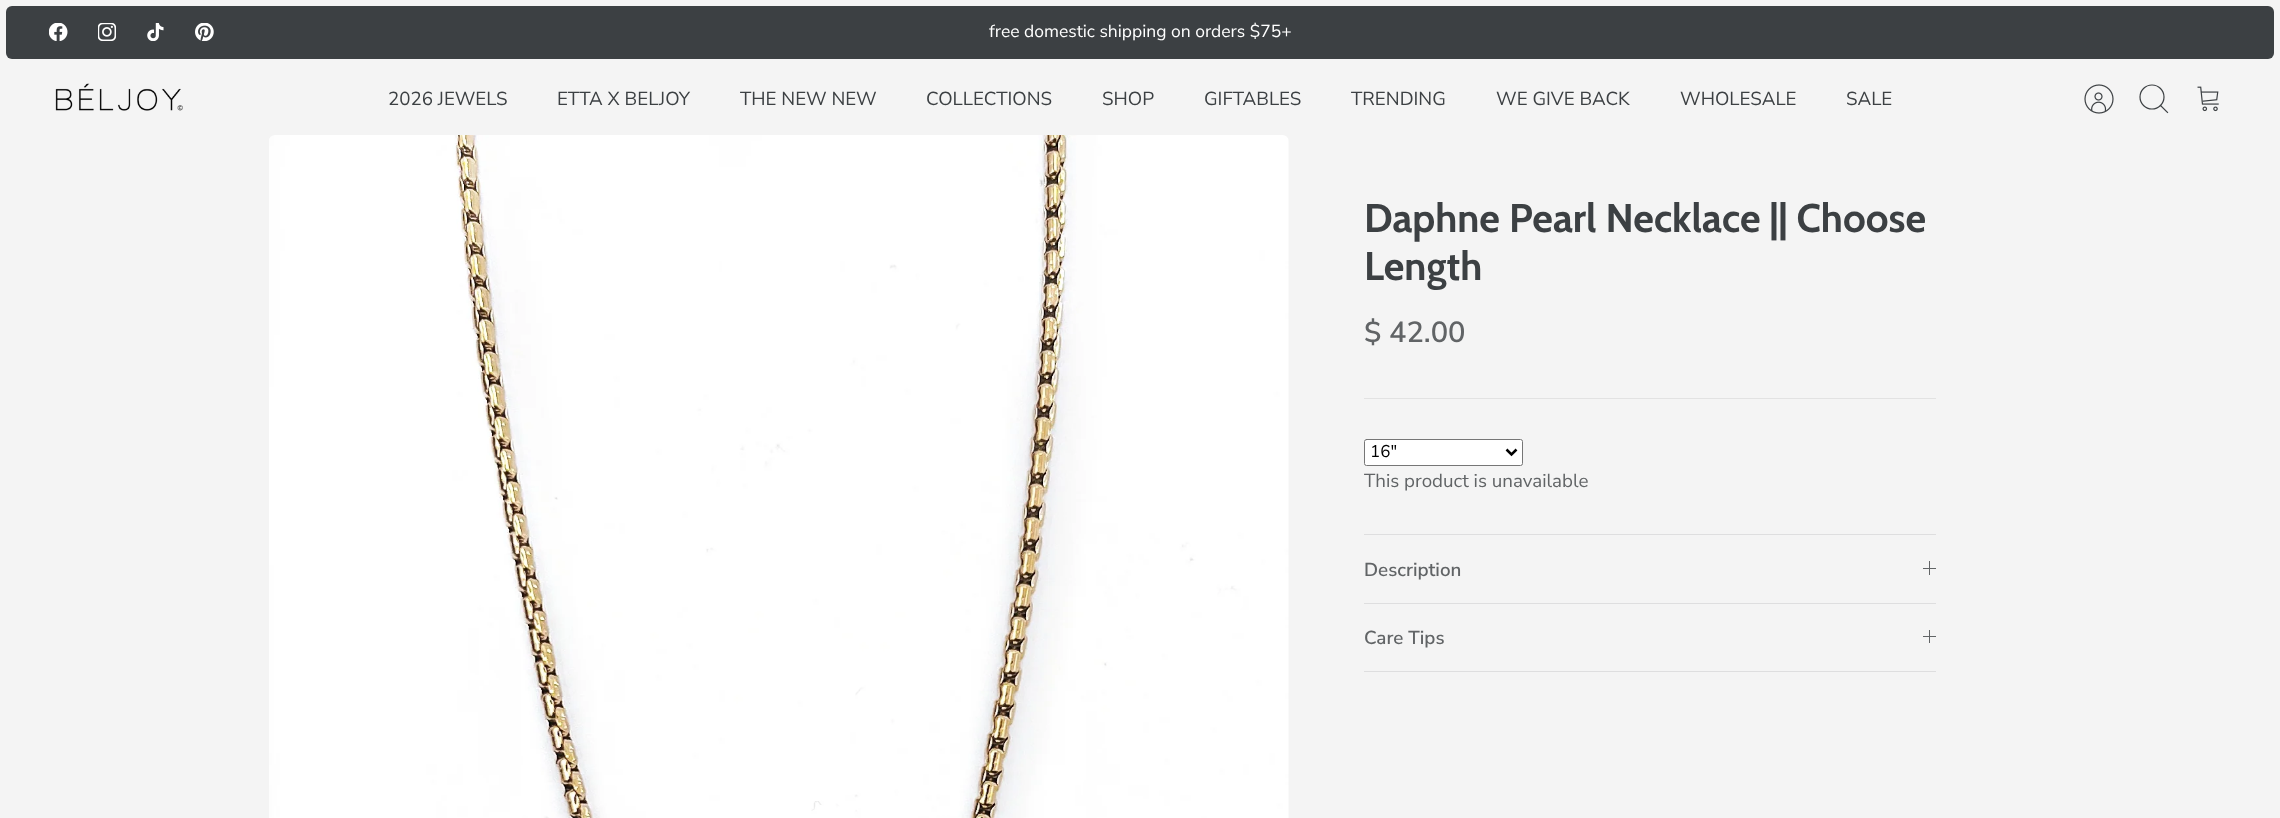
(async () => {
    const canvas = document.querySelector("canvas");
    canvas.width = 2280;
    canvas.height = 818;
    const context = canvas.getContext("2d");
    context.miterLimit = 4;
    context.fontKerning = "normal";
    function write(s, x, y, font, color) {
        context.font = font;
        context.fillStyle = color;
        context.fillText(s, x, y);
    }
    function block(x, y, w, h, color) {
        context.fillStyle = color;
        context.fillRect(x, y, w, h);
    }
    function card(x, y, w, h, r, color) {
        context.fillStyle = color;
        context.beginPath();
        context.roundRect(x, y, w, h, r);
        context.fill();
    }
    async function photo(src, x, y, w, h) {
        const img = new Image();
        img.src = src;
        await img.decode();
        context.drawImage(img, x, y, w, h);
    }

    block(0, 0, 2280, 818, "rgb(244, 244, 244)");
    card(6, 6, 2268, 53, 6, "rgb(60, 64, 67)");
    await photo("media/1.png", 49, 23, 19, 18);
    await photo("media/2.png", 98, 23, 18, 18);
    await photo("media/3.png", 147, 23, 17, 18);
    await photo("media/4.png", 195, 23, 19, 18);
    write("free domestic shipping on orders $75+", 989, 37, "17.5px Nunito Sans", "rgb(255, 255, 255)");
    await photo("media/5.png", 55, 83, 128, 28);
    write("2026 JEWELS", 388, 105, "18.75px Nunito Sans", "rgb(60, 64, 67)");
    write("ETTA X BELJOY", 557, 105, "18.75px Nunito Sans", "rgb(60, 64, 67)");
    write("THE NEW NEW", 740, 105, "18.75px Nunito Sans", "rgb(60, 64, 67)");
    write("COLLECTIONS", 926, 105, "18.75px Nunito Sans", "rgb(60, 64, 67)");
    write("SHOP", 1102, 105, "18.75px Nunito Sans", "rgb(60, 64, 67)");
    write("GIFTABLES", 1204, 105, "18.75px Nunito Sans", "rgb(60, 64, 67)");
    write("TRENDING", 1351, 105, "18.75px Nunito Sans", "rgb(60, 64, 67)");
    write("WE GIVE BACK", 1496, 105, "18.75px Nunito Sans", "rgb(60, 64, 67)");
    write("WHOLESALE", 1680, 105, "18.75px Nunito Sans", "rgb(60, 64, 67)");
    write("SALE", 1846, 105, "18.75px Nunito Sans", "rgb(60, 64, 67)");
    await photo("media/6.png", 2084, 84, 30, 30);
    context.beginPath();
    context.arc(2152, 97, 12, 0, Math.PI * 2);
    context.strokeStyle = "rgb(60, 64, 67)";
    context.lineWidth = 1.2;
    context.stroke();
    context.beginPath();
    context.moveTo(2160.5, 105.5);
    context.lineTo(2167.5, 112.5);
    context.lineCap = "square";
    context.stroke();
    await photo("media/7.png", 2197, 86, 22, 26);
    await photo("media/8.png", 269, 135, 1020, 683);
    write("Daphne Pearl Necklace || Choose", 1364, 232, "bold 40px Cabin", "rgb(60, 64, 67)");
    write("Length", 1364, 280, "bold 40px Cabin", "rgb(60, 64, 67)");
    write("$ 42.00", 1364, 342, "600 29px Nunito Sans", "rgb(97, 100, 102)");
    block(1364, 398, 572, 1, "rgb(226, 226, 226)");
    context.fillStyle = "rgb(255, 255, 255)";
    context.beginPath();
    context.roundRect(1364.5, 439.5, 158, 26, 2);
    context.fill();
    context.strokeStyle = "rgb(118, 118, 118)";
    context.lineWidth = 1;
    context.stroke();
    context.beginPath();
    context.moveTo(1506.5, 449.5);
    context.lineTo(1511.5, 454.5);
    context.lineTo(1516.5, 449.5);
    context.strokeStyle = "rgb(0, 0, 0)";
    context.lineWidth = 2.5;
    context.lineCap = "butt";
    context.stroke();
    write("16\"", 1370, 457, "17px Nunito Sans", "rgb(0, 0, 0)");
    write("This product is unavailable", 1364, 487, "18.75px Nunito Sans", "rgb(97, 100, 102)");
    block(1364, 534, 572, 1, "rgb(222, 222, 223)");
    block(1364, 603, 572, 1, "rgb(222, 222, 223)");
    write("Description", 1364, 576, "600 18.75px Nunito Sans", "rgb(97, 100, 102)");
    block(1929, 561, 1, 14, "rgb(97, 100, 102)");
    block(1923, 568, 13, 1, "rgb(97, 100, 102)");
    block(1364, 671, 572, 1, "rgb(222, 222, 223)");
    write("Care Tips", 1364, 644, "600 18.75px Nunito Sans", "rgb(97, 100, 102)");
    block(1929, 630, 1, 13, "rgb(97, 100, 102)");
    block(1923, 636, 13, 1, "rgb(97, 100, 102)");
})();
